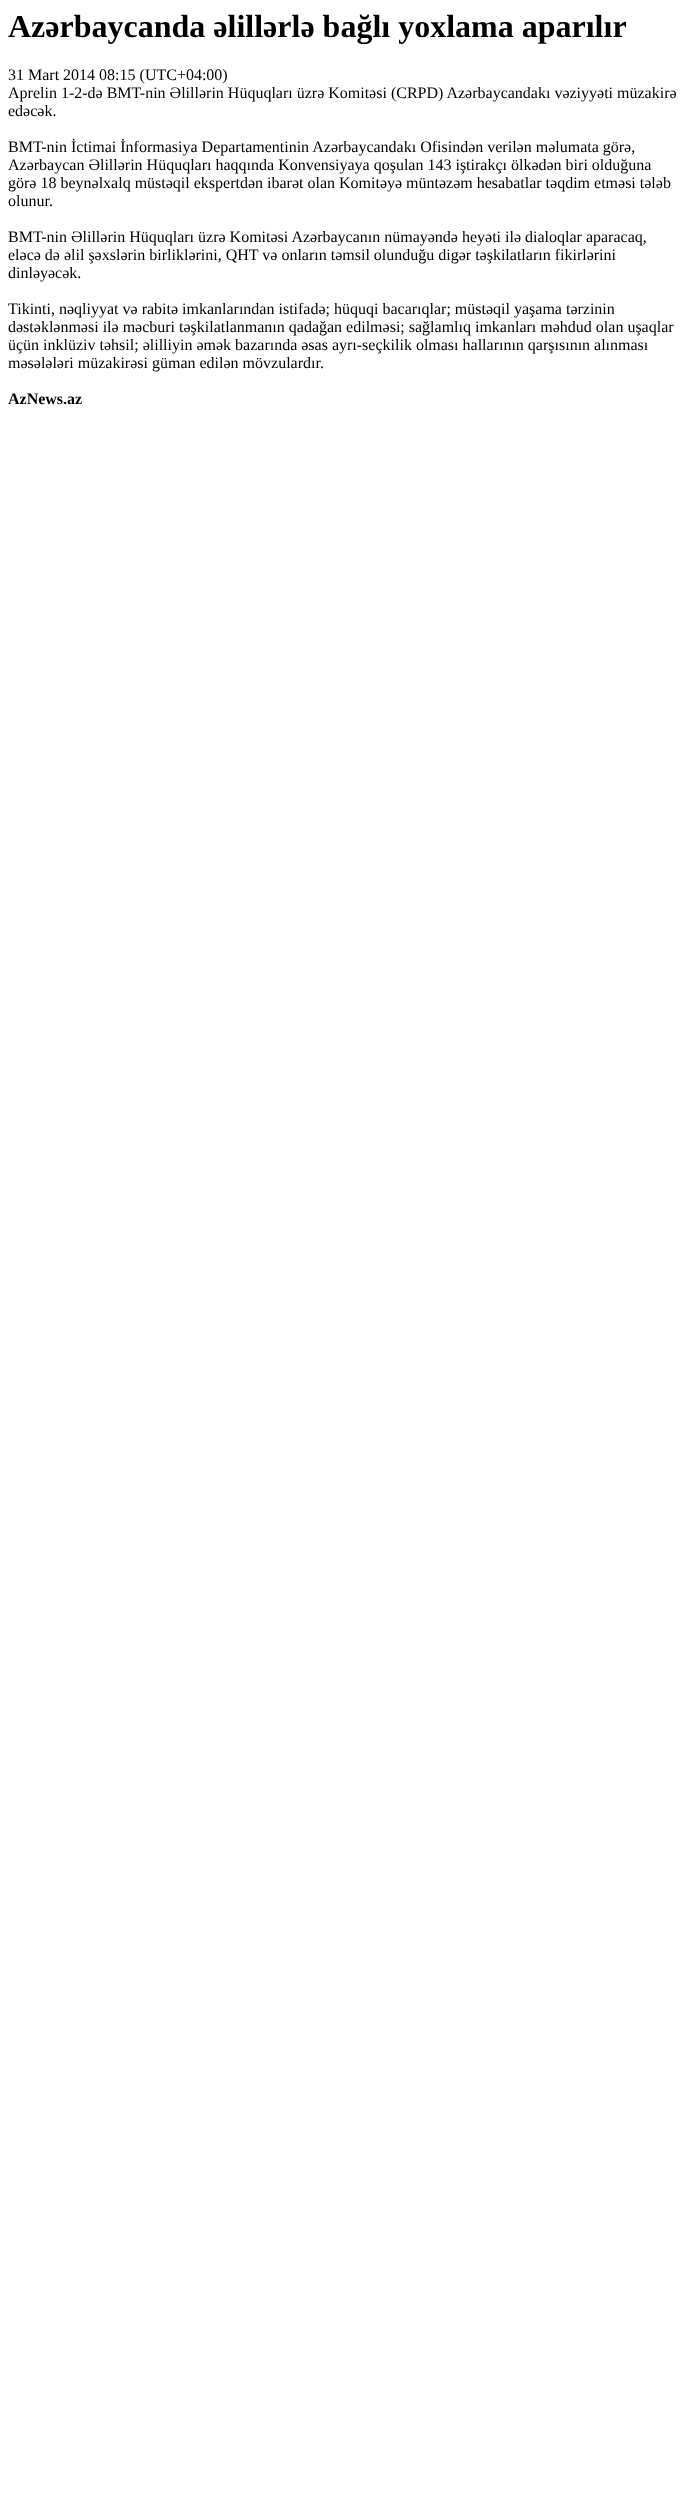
(async () => {
    const canvas = document.querySelector("canvas");
    canvas.width = 688;
    canvas.height = 2505;
    const context = canvas.getContext("2d");
    context.miterLimit = 4;
    context.fontKerning = "normal";
    function write(s, x, y, font, color) {
        context.font = font;
        context.fillStyle = color;
        context.fillText(s, x, y);
    }
    function block(x, y, w, h, color) {
        context.fillStyle = color;
        context.fillRect(x, y, w, h);
    }

    block(0, 0, 688, 2505, "rgb(255, 255, 255)");
    write("Azərbaycanda əlillərlə bağlı yoxlama aparılır", 8, 37, "bold 32px Liberation Serif", "rgb(0, 0, 0)");
    write("31 Mart 2014 08:15 (UTC+04:00)", 8, 80, "16px Liberation Serif", "rgb(0, 0, 0)");
    write("Aprelin 1-2-də BMT-nin Əlillərin Hüquqları üzrə Komitəsi (CRPD) Azərbaycandakı vəziyyəti müzakirə", 8, 98, "16px Liberation Serif", "rgb(0, 0, 0)");
    write("edəcək.", 8, 116, "16px Liberation Serif", "rgb(0, 0, 0)");
    write("BMT-nin İctimai İnformasiya Departamentinin Azərbaycandakı Ofisindən verilən məlumata görə,", 8, 152, "16px Liberation Serif", "rgb(0, 0, 0)");
    write("Azərbaycan Əlillərin Hüquqları haqqında Konvensiyaya qoşulan 143 iştirakçı ölkədən biri olduğuna", 8, 170, "16px Liberation Serif", "rgb(0, 0, 0)");
    write("görə 18 beynəlxalq müstəqil ekspertdən ibarət olan Komitəyə müntəzəm hesabatlar təqdim etməsi tələb", 8, 188, "16px Liberation Serif", "rgb(0, 0, 0)");
    write("olunur.", 8, 206, "16px Liberation Serif", "rgb(0, 0, 0)");
    write("BMT-nin Əlillərin Hüquqları üzrə Komitəsi Azərbaycanın nümayəndə heyəti ilə dialoqlar aparacaq,", 8, 242, "16px Liberation Serif", "rgb(0, 0, 0)");
    write("eləcə də əlil şəxslərin birliklərini, QHT və onların təmsil olunduğu digər təşkilatların fikirlərini", 8, 260, "16px Liberation Serif", "rgb(0, 0, 0)");
    write("dinləyəcək.", 8, 278, "16px Liberation Serif", "rgb(0, 0, 0)");
    write("Tikinti, nəqliyyat və rabitə imkanlarından istifadə; hüquqi bacarıqlar; müstəqil yaşama tərzinin", 8, 314, "16px Liberation Serif", "rgb(0, 0, 0)");
    write("dəstəklənməsi ilə məcburi təşkilatlanmanın qadağan edilməsi; sağlamlıq imkanları məhdud olan uşaqlar", 8, 332, "16px Liberation Serif", "rgb(0, 0, 0)");
    write("üçün inklüziv təhsil; əlilliyin əmək bazarında əsas ayrı-seçkilik olması hallarının qarşısının alınması", 8, 350, "16px Liberation Serif", "rgb(0, 0, 0)");
    write("məsələləri müzakirəsi güman edilən mövzulardır.", 8, 368, "16px Liberation Serif", "rgb(0, 0, 0)");
    write("AzNews.az", 8, 404, "bold 16px Liberation Serif", "rgb(0, 0, 0)");
})();
